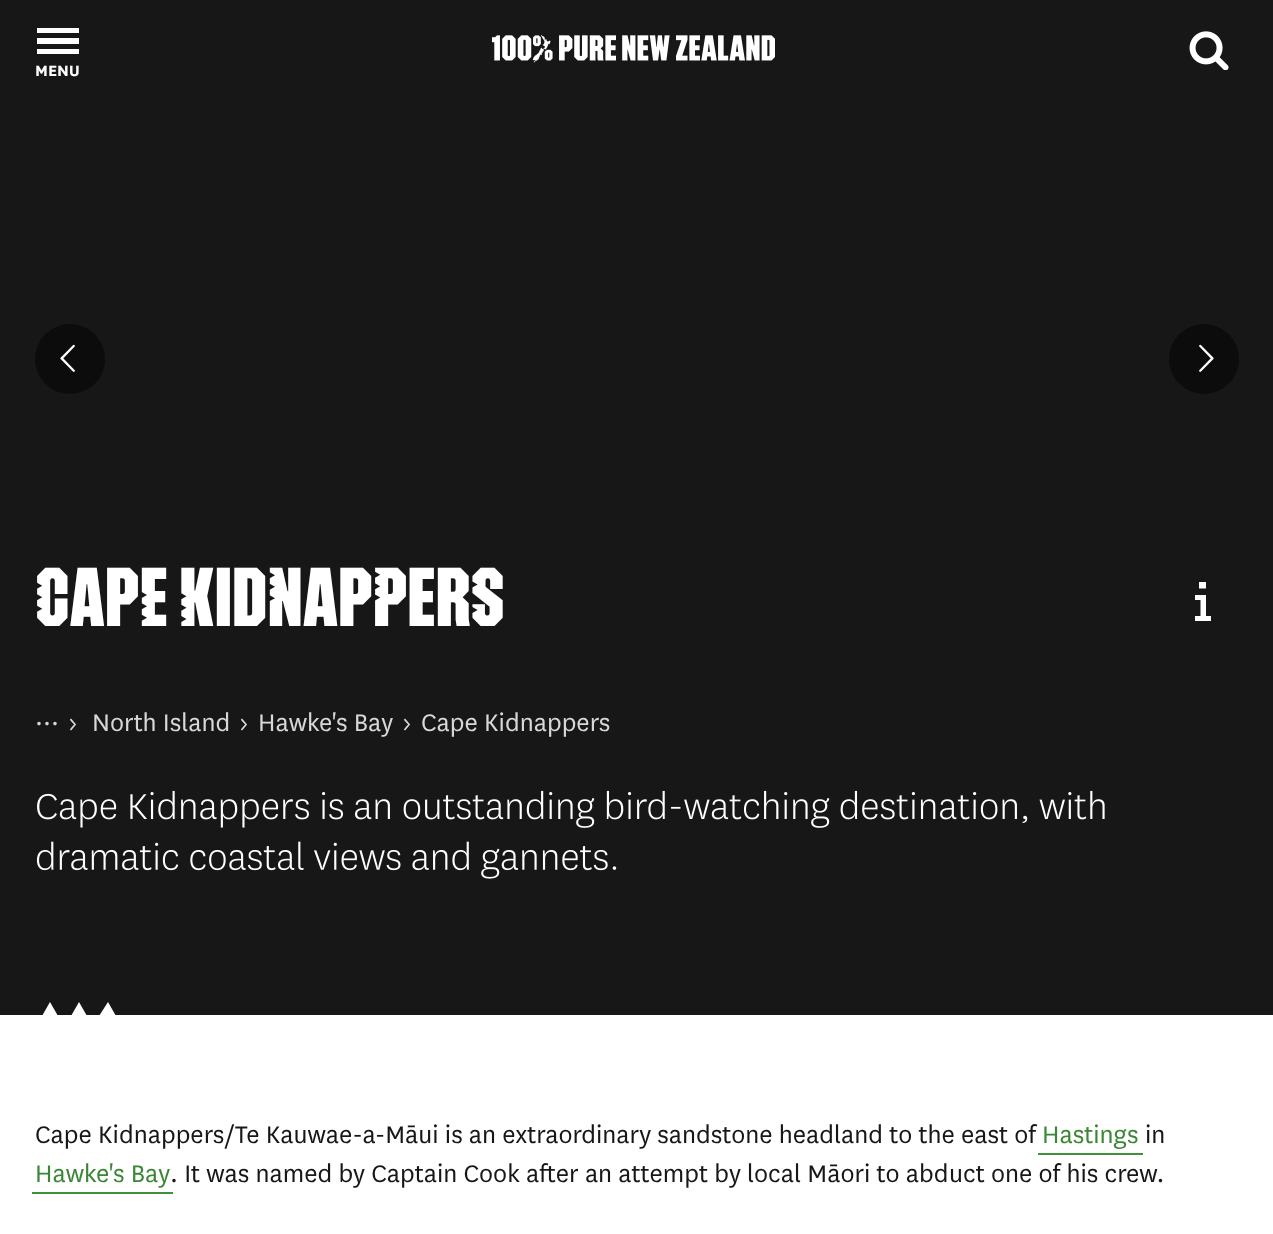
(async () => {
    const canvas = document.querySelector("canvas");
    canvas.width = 1273;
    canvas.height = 1234;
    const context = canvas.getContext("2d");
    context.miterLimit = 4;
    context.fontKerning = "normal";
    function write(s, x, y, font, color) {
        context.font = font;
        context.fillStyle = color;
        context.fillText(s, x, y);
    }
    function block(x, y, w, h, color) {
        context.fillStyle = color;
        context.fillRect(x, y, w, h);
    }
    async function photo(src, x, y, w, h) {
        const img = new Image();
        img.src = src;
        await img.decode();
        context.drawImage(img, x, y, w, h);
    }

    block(0, 0, 1273, 1234, "rgb(255, 255, 255)");
    block(0, 0, 1273, 1015, "rgb(23, 23, 23)");
    await photo("media/1.png", 492, 35, 283, 28);
    await photo("media/2.png", 1189, 31, 40, 39);
    context.fillStyle = "rgb(255, 255, 255)";
    context.beginPath();
    context.moveTo(37, 28);
    context.lineTo(79, 28);
    context.lineTo(79, 33);
    context.lineTo(37, 33);
    context.closePath();
    context.moveTo(37, 38);
    context.lineTo(79, 38);
    context.lineTo(79, 44);
    context.lineTo(37, 44);
    context.closePath();
    context.moveTo(37, 49);
    context.lineTo(79, 49);
    context.lineTo(79, 54);
    context.lineTo(37, 54);
    context.closePath();
    context.fill();
    write("MENU", 35, 76, "800 17.5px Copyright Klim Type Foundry", "rgb(255, 255, 255)");
    context.fillStyle = "rgb(12, 12, 12)";
    context.beginPath();
    context.arc(70, 359, 35, 0, Math.PI * 2);
    context.fill();
    await photo("media/3.png", 60, 344, 15, 28);
    context.beginPath();
    context.arc(1204, 359, 35, 0, Math.PI * 2);
    context.fill();
    await photo("media/4.png", 1199, 344, 15, 28);
    context.fillStyle = "rgb(255, 255, 255)";
    context.beginPath();
    context.moveTo(1206, 582);
    context.lineTo(1206, 588.5);
    context.lineTo(1199, 588.5);
    context.lineTo(1199, 582);
    context.closePath();
    context.moveTo(1195, 595);
    context.lineTo(1206, 595);
    context.lineTo(1206, 616);
    context.lineTo(1211, 616);
    context.lineTo(1211, 621);
    context.lineTo(1195, 621);
    context.lineTo(1195, 616);
    context.lineTo(1200.5, 616);
    context.lineTo(1200.5, 600);
    context.lineTo(1195, 600);
    context.closePath();
    context.fill();
    write("CAPE KIDNAPPERS", 35, 626, "78.75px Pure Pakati", "rgb(255, 255, 255)");
    write("...", 35, 725, "500 28px Copyright Klim Type Foundry", "rgb(216, 216, 216)");
    write("›", 69, 731, "500 28px Copyright Klim Type Foundry", "rgb(216, 216, 216)");
    write("North Island", 92, 731, "500 28px Copyright Klim Type Foundry", "rgb(216, 216, 216)");
    write("›", 240, 731, "500 28px Copyright Klim Type Foundry", "rgb(216, 216, 216)");
    write("Hawke's Bay", 258, 731, "500 28px Copyright Klim Type Foundry", "rgb(216, 216, 216)");
    write("›", 403, 731, "500 28px Copyright Klim Type Foundry", "rgb(216, 216, 216)");
    write("Cape Kidnappers", 421, 731, "500 28px Copyright Klim Type Foundry", "rgb(216, 216, 216)");
    await photo("media/5.png", 37, 790, 1068, 38);
    await photo("media/6.png", 36, 841, 581, 38);
    context.fillStyle = "rgb(255, 255, 255)";
    context.beginPath();
    context.moveTo(50, 1002);
    context.lineTo(42, 1016);
    context.lineTo(58, 1016);
    context.closePath();
    context.moveTo(79, 1002);
    context.lineTo(71, 1016);
    context.lineTo(87, 1016);
    context.closePath();
    context.moveTo(108, 1002);
    context.lineTo(99, 1016);
    context.lineTo(116, 1016);
    context.closePath();
    context.fill();
    write("Cape Kidnappers/Te Kauwae-a-Māui is an extraordinary sandstone headland to the east of", 35, 1143, "500 28px Copyright Klim Type Foundry", "rgb(23, 23, 23)");
    write("Hastings", 1042, 1143, "500 28px Copyright Klim Type Foundry", "rgb(60, 134, 55)");
    block(1038, 1153, 105, 2, "rgb(65, 145, 60)");
    write("in", 1145, 1143, "500 28px Copyright Klim Type Foundry", "rgb(23, 23, 23)");
    write("Hawke's Bay", 35, 1182, "500 28px Copyright Klim Type Foundry", "rgb(60, 134, 55)");
    block(32, 1192, 141, 2, "rgb(65, 145, 60)");
    write(". It was named by Captain Cook after an attempt by local Māori to abduct one of his crew.", 170, 1182, "500 28px Copyright Klim Type Foundry", "rgb(23, 23, 23)");
})();
